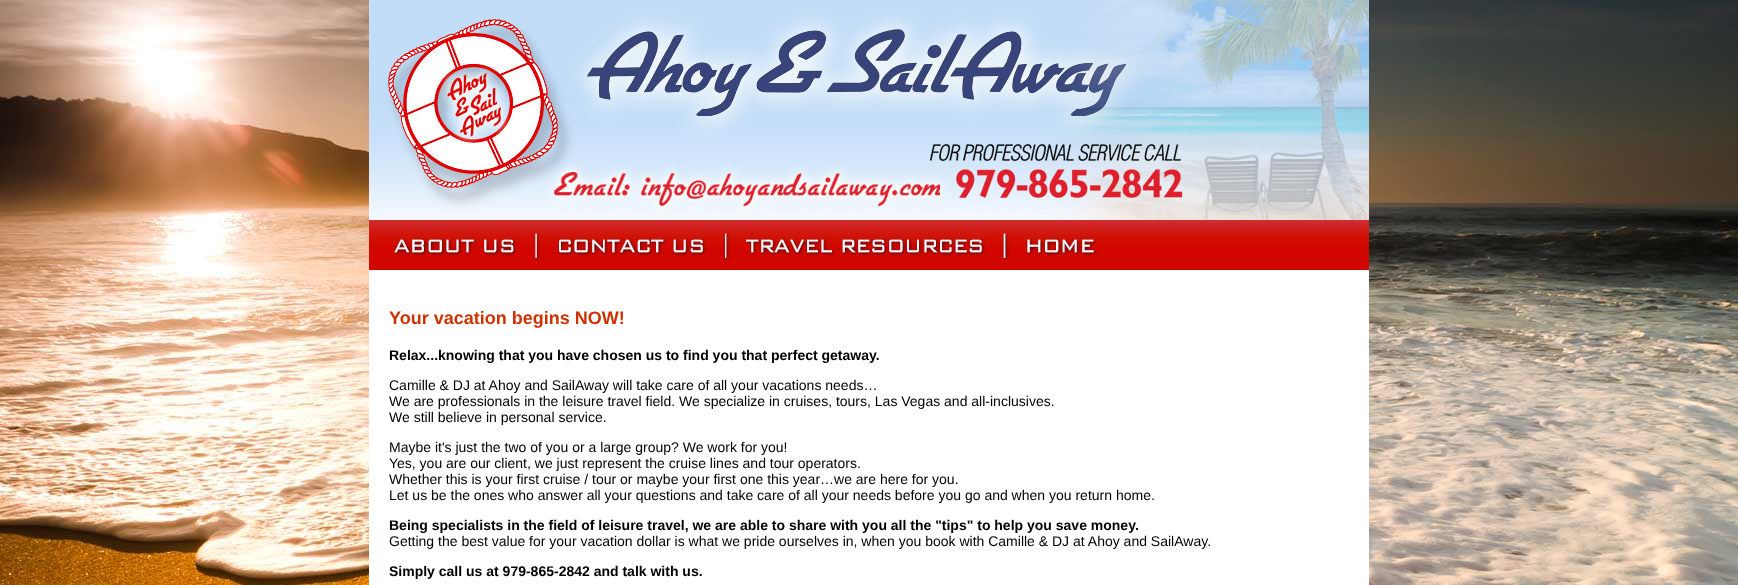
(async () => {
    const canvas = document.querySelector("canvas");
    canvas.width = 1738;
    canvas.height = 585;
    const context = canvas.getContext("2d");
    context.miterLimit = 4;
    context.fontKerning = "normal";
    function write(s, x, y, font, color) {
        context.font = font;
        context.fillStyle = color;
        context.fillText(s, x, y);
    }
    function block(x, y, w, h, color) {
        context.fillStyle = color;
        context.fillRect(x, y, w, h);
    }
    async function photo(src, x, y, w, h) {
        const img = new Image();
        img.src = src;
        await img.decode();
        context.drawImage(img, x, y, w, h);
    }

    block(0, 0, 1738, 585, "rgb(255, 255, 255)");
    await photo("media/1.png", 0, 0, 1738, 585);
    await photo("media/2.png", 369, 0, 1000, 220);
    await photo("media/3.png", 369, 220, 170, 50);
    await photo("media/4.png", 539, 220, 188, 50);
    await photo("media/5.png", 727, 220, 280, 50);
    await photo("media/6.png", 1007, 220, 106, 50);
    await photo("media/7.png", 1113, 220, 256, 50);
    block(369, 270, 1000, 315, "rgb(255, 255, 255)");
    write("Your vacation begins NOW!", 389, 324, "bold 18px Liberation Sans", "rgb(204, 51, 0)");
    write("Relax...knowing that you have chosen us to find you that perfect getaway.", 389, 360, "bold 14px Liberation Sans", "rgb(0, 0, 0)");
    write("Camille & DJ at Ahoy and SailAway will take care of all your vacations needs…", 389, 390, "14px Liberation Sans", "rgb(0, 0, 0)");
    write("We are professionals in the leisure travel field. We specialize in cruises, tours, Las Vegas and all-inclusives.", 389, 406, "14px Liberation Sans", "rgb(0, 0, 0)");
    write("We still believe in personal service.", 389, 422, "14px Liberation Sans", "rgb(0, 0, 0)");
    write("Maybe it's just the two of you or a large group? We work for you!", 389, 452, "14px Liberation Sans", "rgb(0, 0, 0)");
    write("Yes, you are our client, we just represent the cruise lines and tour operators.", 389, 468, "14px Liberation Sans", "rgb(0, 0, 0)");
    write("Whether this is your first cruise / tour or maybe your first one this year…we are here for you.", 389, 484, "14px Liberation Sans", "rgb(0, 0, 0)");
    write("Let us be the ones who answer all your questions and take care of all your needs before you go and when you return home.", 389, 500, "14px Liberation Sans", "rgb(0, 0, 0)");
    write("Being specialists in the field of leisure travel, we are able to share with you all the \"tips\" to help you save money.", 389, 530, "bold 14px Liberation Sans", "rgb(0, 0, 0)");
    write("Getting the best value for your vacation dollar is what we pride ourselves in, when you book with Camille & DJ at Ahoy and SailAway.", 389, 546, "14px Liberation Sans", "rgb(0, 0, 0)");
    write("Simply call us at 979-865-2842 and talk with us.", 389, 576, "bold 14px Liberation Sans", "rgb(0, 0, 0)");
})();
